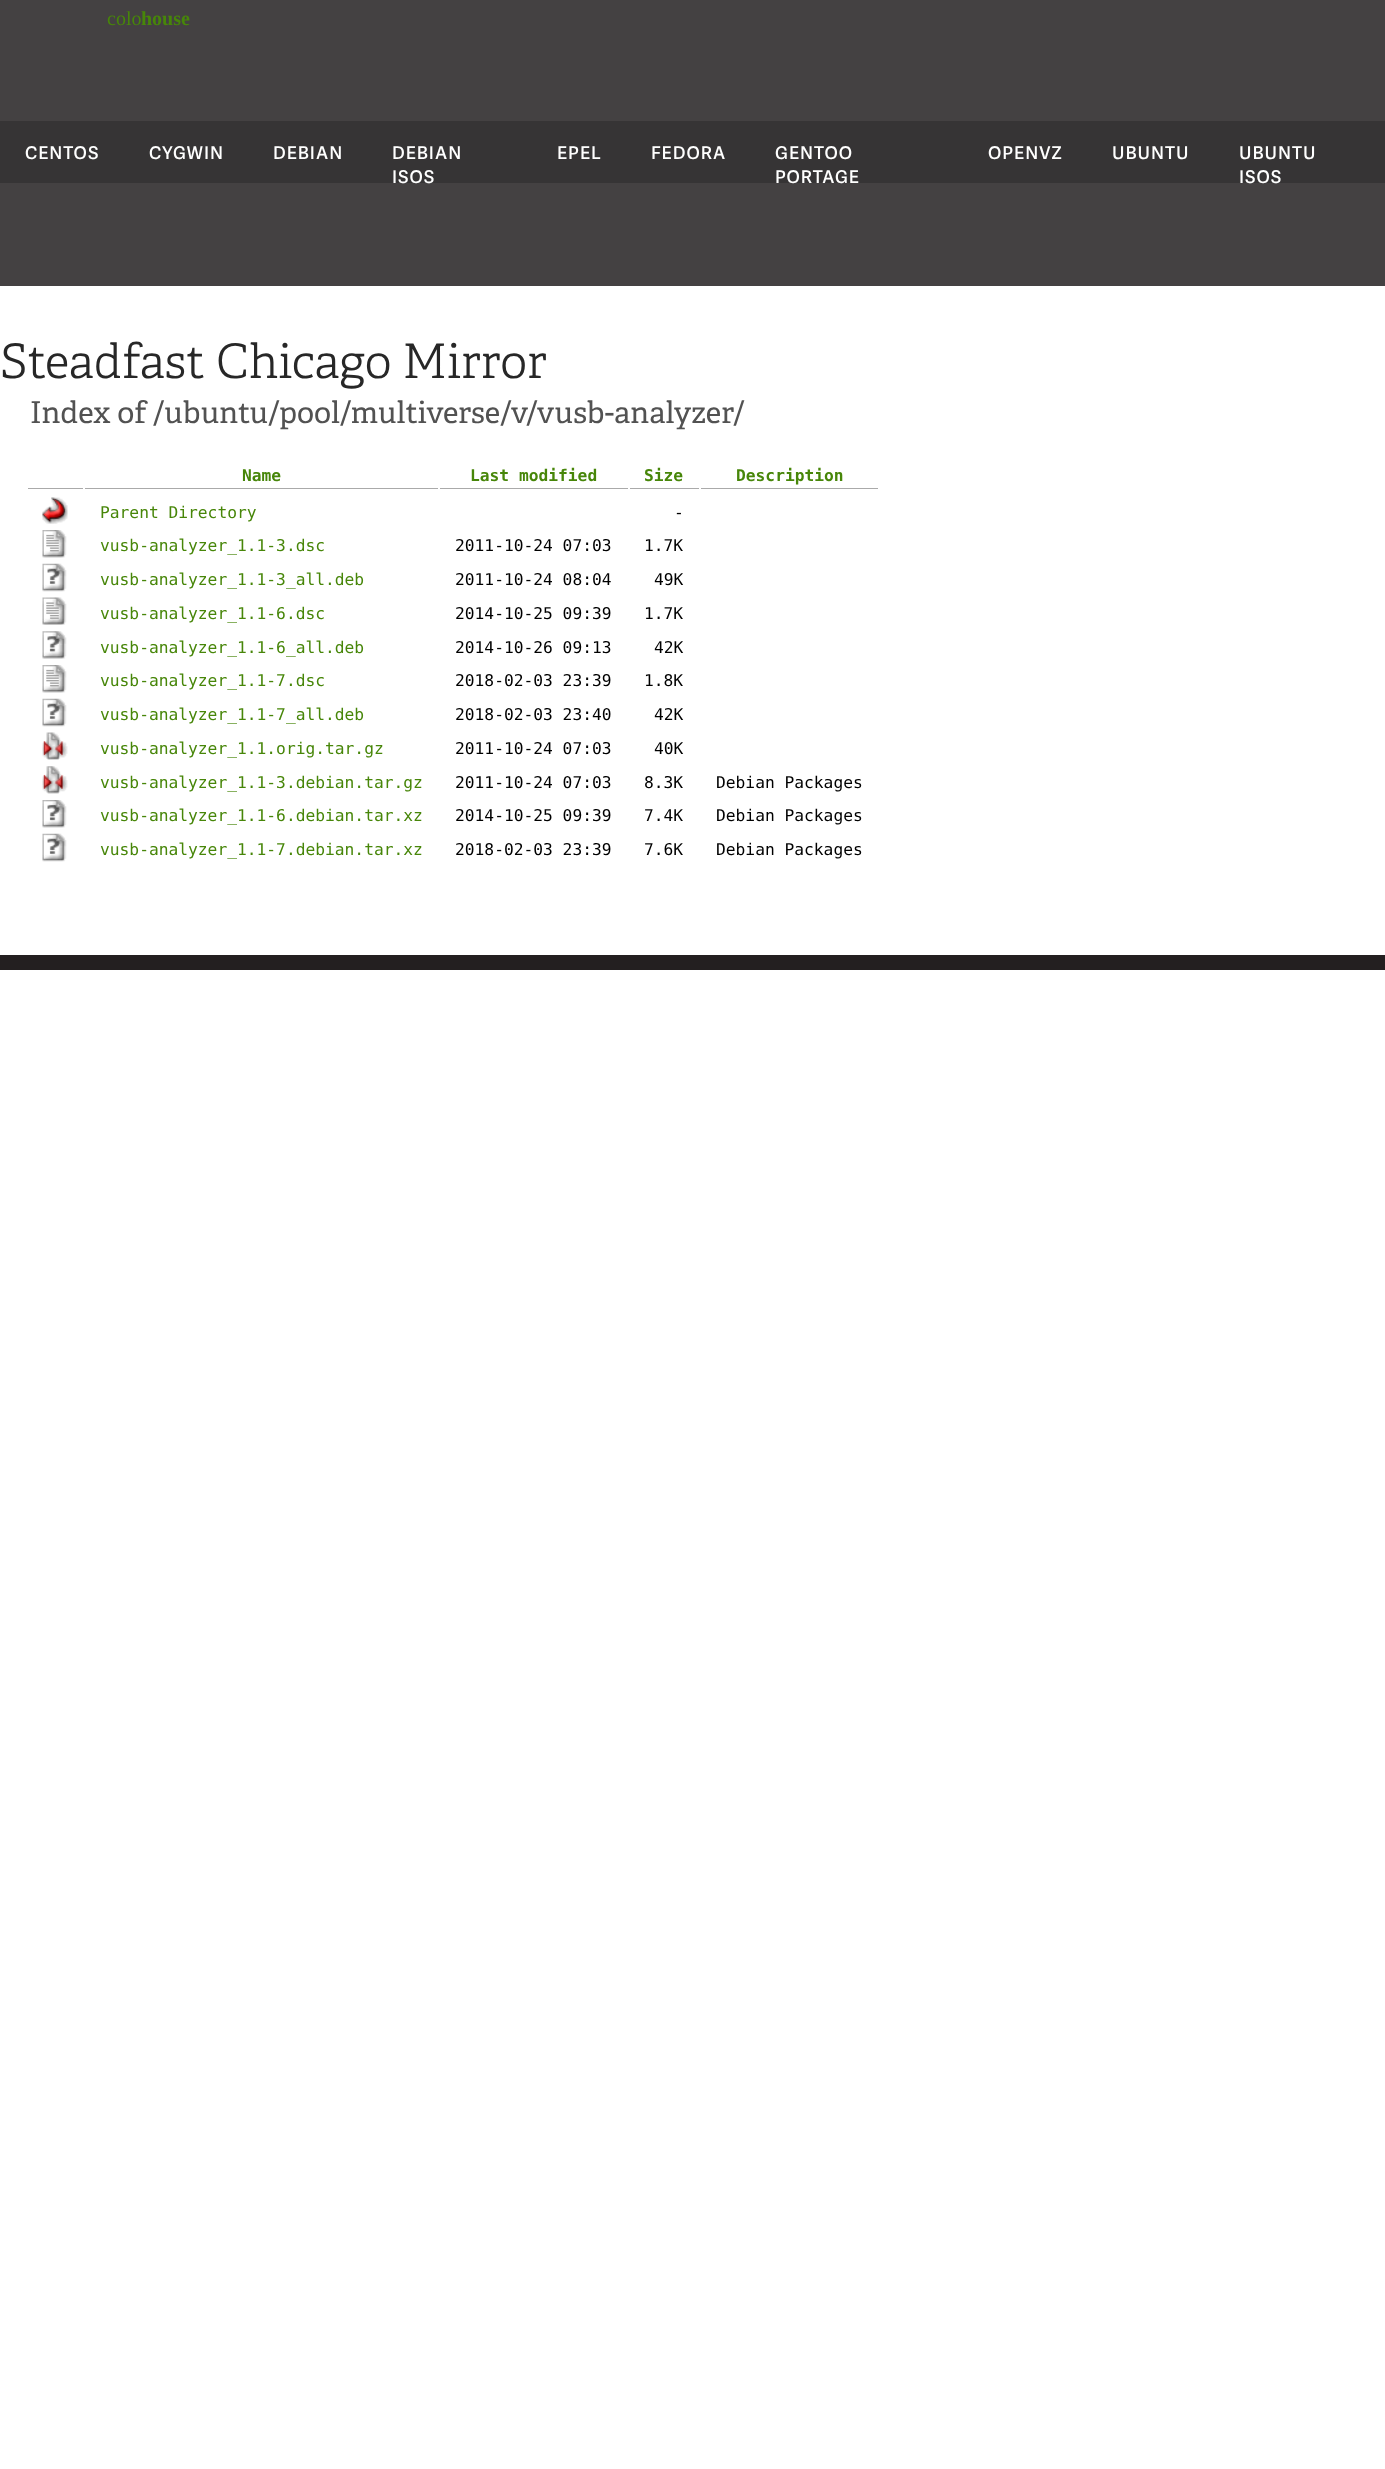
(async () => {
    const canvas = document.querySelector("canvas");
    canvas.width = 1385;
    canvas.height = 2469;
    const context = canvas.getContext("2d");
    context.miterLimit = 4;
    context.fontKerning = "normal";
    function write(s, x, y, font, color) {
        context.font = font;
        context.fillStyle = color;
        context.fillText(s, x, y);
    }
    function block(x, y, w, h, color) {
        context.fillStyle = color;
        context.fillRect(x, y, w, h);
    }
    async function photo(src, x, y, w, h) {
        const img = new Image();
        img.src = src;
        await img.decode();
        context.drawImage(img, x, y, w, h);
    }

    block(0, 0, 1385, 2469, "rgb(255, 255, 255)");
    block(0, 0, 1385, 286, "rgb(68, 65, 66)");
    write("colo", 107, 25, "20px Liberation Serif", "rgb(71, 134, 9)");
    write("house", 141, 25, "bold 20px Liberation Serif", "rgb(71, 134, 9)");
    block(0, 121, 1385, 62, "rgb(54, 52, 53)");
    context.letterSpacing = "1px";
    write("CENTOS", 25, 159, "600 17.5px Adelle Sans", "rgb(255, 255, 255)");
    write("CYGWIN", 149, 159, "600 17.5px Adelle Sans", "rgb(255, 255, 255)");
    write("DEBIAN", 273, 159, "600 17.5px Adelle Sans", "rgb(255, 255, 255)");
    write("DEBIAN", 392, 159, "600 17.5px Adelle Sans", "rgb(255, 255, 255)");
    write("ISOS", 392, 183, "600 17.5px Adelle Sans", "rgb(255, 255, 255)");
    write("EPEL", 557, 159, "600 17.5px Adelle Sans", "rgb(255, 255, 255)");
    write("FEDORA", 651, 159, "600 17.5px Adelle Sans", "rgb(255, 255, 255)");
    write("GENTOO", 775, 159, "600 17.5px Adelle Sans", "rgb(255, 255, 255)");
    write("PORTAGE", 775, 183, "600 17.5px Adelle Sans", "rgb(255, 255, 255)");
    write("OPENVZ", 988, 159, "600 17.5px Adelle Sans", "rgb(255, 255, 255)");
    write("UBUNTU", 1112, 159, "600 17.5px Adelle Sans", "rgb(255, 255, 255)");
    write("UBUNTU", 1239, 159, "600 17.5px Adelle Sans", "rgb(255, 255, 255)");
    write("ISOS", 1239, 183, "600 17.5px Adelle Sans", "rgb(255, 255, 255)");
    context.letterSpacing = "0px";
    write("Steadfast Chicago Mirror", 0, 378, "300 47.5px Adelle", "rgb(39, 39, 39)");
    write("Index of /ubuntu/pool/multiverse/v/vusb-analyzer/", 30, 423, "30px Adelle", "rgb(82, 82, 82)");
    block(85, 488, 353, 1, "rgb(170, 170, 170)");
    write("Name", 242, 481, "bold 16.25px DejaVu Sans Mono", "rgb(71, 134, 9)");
    block(440, 488, 188, 1, "rgb(170, 170, 170)");
    write("Last modified", 470, 481, "bold 16.25px DejaVu Sans Mono", "rgb(71, 134, 9)");
    block(630, 488, 69, 1, "rgb(170, 170, 170)");
    write("Size", 644, 481, "bold 16.25px DejaVu Sans Mono", "rgb(71, 134, 9)");
    block(701, 488, 177, 1, "rgb(170, 170, 170)");
    write("Description", 736, 481, "bold 16.25px DejaVu Sans Mono", "rgb(71, 134, 9)");
    block(28, 488, 55, 1, "rgb(170, 170, 170)");
    await photo("media/1.png", 42, 497, 26, 27);
    write("Parent Directory", 100, 518, "16.25px DejaVu Sans Mono", "rgb(71, 134, 9)");
    write("-", 674, 518, "16.25px DejaVu Sans Mono", "rgb(0, 0, 0)");
    await photo("media/2.png", 42, 530, 25, 28);
    write("vusb-analyzer_1.1-3.dsc", 100, 551, "16.25px DejaVu Sans Mono", "rgb(71, 134, 9)");
    write("2011-10-24 07:03", 455, 551, "16.25px DejaVu Sans Mono", "rgb(0, 0, 0)");
    write("1.7K", 644, 551, "16.25px DejaVu Sans Mono", "rgb(0, 0, 0)");
    await photo("media/3.png", 42, 563, 25, 29);
    write("vusb-analyzer_1.1-3_all.deb", 100, 585, "16.25px DejaVu Sans Mono", "rgb(71, 134, 9)");
    write("2011-10-24 08:04", 455, 585, "16.25px DejaVu Sans Mono", "rgb(0, 0, 0)");
    write("49K", 654, 585, "16.25px DejaVu Sans Mono", "rgb(0, 0, 0)");
    await photo("media/4.png", 42, 597, 25, 28);
    write("vusb-analyzer_1.1-6.dsc", 100, 619, "16.25px DejaVu Sans Mono", "rgb(71, 134, 9)");
    write("2014-10-25 09:39", 455, 619, "16.25px DejaVu Sans Mono", "rgb(0, 0, 0)");
    write("1.7K", 644, 619, "16.25px DejaVu Sans Mono", "rgb(0, 0, 0)");
    await photo("media/5.png", 42, 631, 25, 28);
    write("vusb-analyzer_1.1-6_all.deb", 100, 653, "16.25px DejaVu Sans Mono", "rgb(71, 134, 9)");
    write("2014-10-26 09:13", 455, 653, "16.25px DejaVu Sans Mono", "rgb(0, 0, 0)");
    write("42K", 654, 653, "16.25px DejaVu Sans Mono", "rgb(0, 0, 0)");
    await photo("media/2.png", 42, 665, 25, 28);
    write("vusb-analyzer_1.1-7.dsc", 100, 686, "16.25px DejaVu Sans Mono", "rgb(71, 134, 9)");
    write("2018-02-03 23:39", 455, 686, "16.25px DejaVu Sans Mono", "rgb(0, 0, 0)");
    write("1.8K", 644, 686, "16.25px DejaVu Sans Mono", "rgb(0, 0, 0)");
    await photo("media/3.png", 42, 698, 25, 29);
    write("vusb-analyzer_1.1-7_all.deb", 100, 720, "16.25px DejaVu Sans Mono", "rgb(71, 134, 9)");
    write("2018-02-03 23:40", 455, 720, "16.25px DejaVu Sans Mono", "rgb(0, 0, 0)");
    write("42K", 654, 720, "16.25px DejaVu Sans Mono", "rgb(0, 0, 0)");
    await photo("media/6.png", 42, 732, 26, 28);
    write("vusb-analyzer_1.1.orig.tar.gz", 100, 754, "16.25px DejaVu Sans Mono", "rgb(71, 134, 9)");
    write("2011-10-24 07:03", 455, 754, "16.25px DejaVu Sans Mono", "rgb(0, 0, 0)");
    write("40K", 654, 754, "16.25px DejaVu Sans Mono", "rgb(0, 0, 0)");
    await photo("media/7.png", 42, 766, 26, 28);
    write("vusb-analyzer_1.1-3.debian.tar.gz", 100, 788, "16.25px DejaVu Sans Mono", "rgb(71, 134, 9)");
    write("2011-10-24 07:03", 455, 788, "16.25px DejaVu Sans Mono", "rgb(0, 0, 0)");
    write("8.3K", 644, 788, "16.25px DejaVu Sans Mono", "rgb(0, 0, 0)");
    write("Debian Packages", 716, 788, "16.25px DejaVu Sans Mono", "rgb(0, 0, 0)");
    await photo("media/8.png", 42, 800, 25, 28);
    write("vusb-analyzer_1.1-6.debian.tar.xz", 100, 821, "16.25px DejaVu Sans Mono", "rgb(71, 134, 9)");
    write("2014-10-25 09:39", 455, 821, "16.25px DejaVu Sans Mono", "rgb(0, 0, 0)");
    write("7.4K", 644, 821, "16.25px DejaVu Sans Mono", "rgb(0, 0, 0)");
    write("Debian Packages", 716, 821, "16.25px DejaVu Sans Mono", "rgb(0, 0, 0)");
    await photo("media/3.png", 42, 833, 25, 29);
    write("vusb-analyzer_1.1-7.debian.tar.xz", 100, 855, "16.25px DejaVu Sans Mono", "rgb(71, 134, 9)");
    write("2018-02-03 23:39", 455, 855, "16.25px DejaVu Sans Mono", "rgb(0, 0, 0)");
    write("7.6K", 644, 855, "16.25px DejaVu Sans Mono", "rgb(0, 0, 0)");
    write("Debian Packages", 716, 855, "16.25px DejaVu Sans Mono", "rgb(0, 0, 0)");
    block(0, 955, 1385, 15, "rgb(35, 31, 32)");
})();
